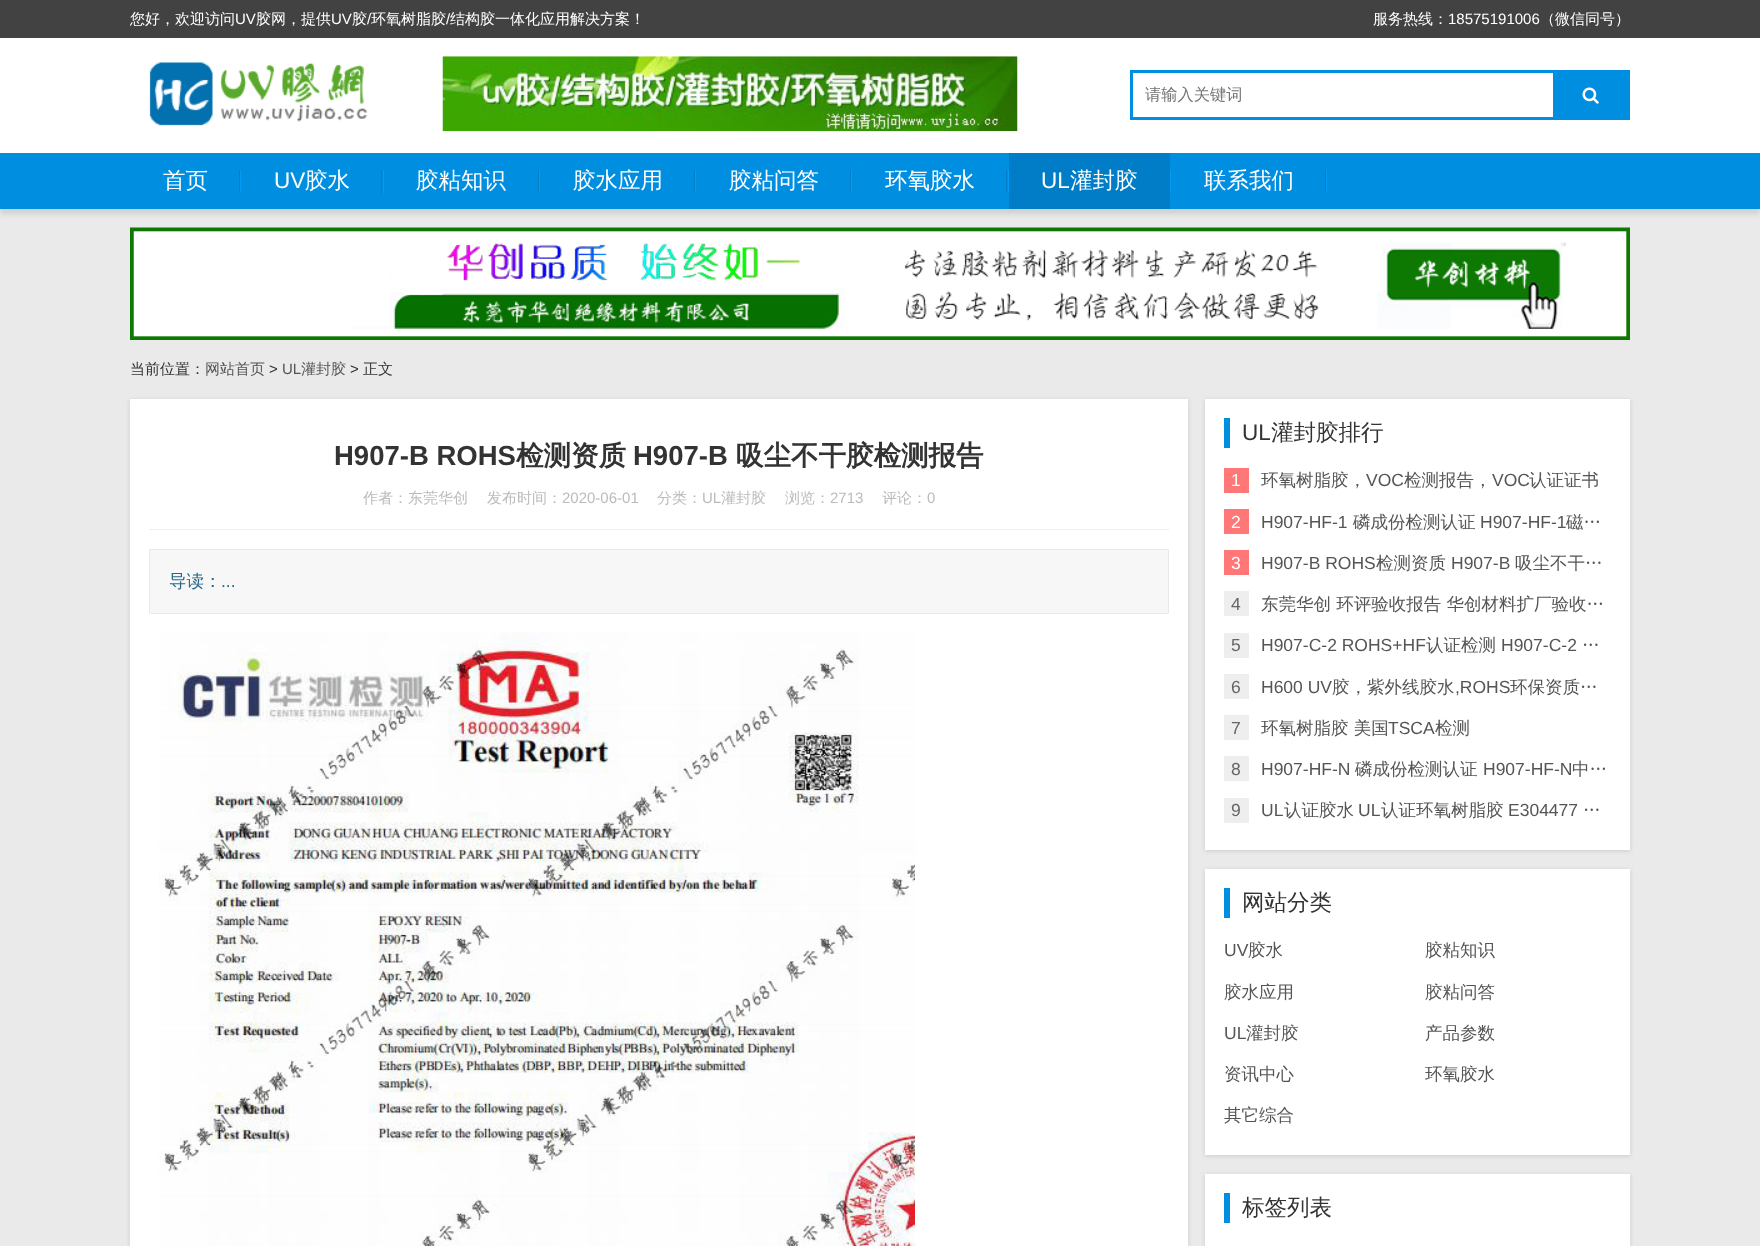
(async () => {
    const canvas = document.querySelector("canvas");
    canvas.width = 1760;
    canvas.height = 1246;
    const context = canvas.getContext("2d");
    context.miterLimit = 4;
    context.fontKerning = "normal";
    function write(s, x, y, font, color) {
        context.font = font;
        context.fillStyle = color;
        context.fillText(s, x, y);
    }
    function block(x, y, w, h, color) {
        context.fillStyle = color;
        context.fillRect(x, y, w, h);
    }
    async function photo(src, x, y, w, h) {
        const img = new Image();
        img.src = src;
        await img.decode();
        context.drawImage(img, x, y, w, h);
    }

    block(0, 0, 1760, 1246, "rgb(234, 234, 234)");
    block(0, 0, 1760, 38, "rgb(66, 66, 66)");
    write("您好，欢迎访问", 130, 24, "500 15px WenQuanYi Zen Hei", "rgb(255, 255, 255)");
    write("UV", 235, 24, "15px Liberation Sans", "rgb(255, 255, 255)");
    write("胶网，提供", 256, 24, "500 15px WenQuanYi Zen Hei", "rgb(255, 255, 255)");
    write("UV", 331, 24, "15px Liberation Sans", "rgb(255, 255, 255)");
    write("胶", 352, 24, "500 15px WenQuanYi Zen Hei", "rgb(255, 255, 255)");
    write("/", 367, 24, "15px Liberation Sans", "rgb(255, 255, 255)");
    write("环氧树脂胶", 371, 24, "500 15px WenQuanYi Zen Hei", "rgb(255, 255, 255)");
    write("/", 446, 24, "15px Liberation Sans", "rgb(255, 255, 255)");
    write("结构胶一体化应用解决方案！", 450, 24, "500 15px WenQuanYi Zen Hei", "rgb(255, 255, 255)");
    write("服务热线：", 1373, 24, "500 15px WenQuanYi Zen Hei", "rgb(255, 255, 255)");
    write("18575191006", 1448, 24, "15px Liberation Sans", "rgb(255, 255, 255)");
    write("（微信同号）", 1540, 24, "500 15px WenQuanYi Zen Hei", "rgb(255, 255, 255)");
    block(0, 38, 1760, 115, "rgb(255, 255, 255)");
    await photo("media/1.png", 149, 62, 219, 64);
    await photo("media/2.png", 442, 56, 576, 76);
    context.strokeStyle = "rgb(0, 142, 225)";
    context.lineWidth = 3;
    context.strokeRect(1131.5, 71.5, 497, 47);
    write("请输入关键词", 1145, 100, "500 16.25px WenQuanYi Zen Hei", "rgb(117, 117, 117)");
    block(1553, 73, 74, 44, "rgb(0, 142, 225)");
    await photo("media/3.png", 1582, 87, 17, 17);
    context.fillStyle = "rgb(208, 208, 208)";
    context.filter = "blur(2.5px)";
    context.beginPath();
    context.rect(0, 158, 1760, 56);
    context.fill();
    context.filter = "none";
    block(0, 153, 1760, 56, "rgb(0, 142, 225)");
    write("首页", 163, 188, "500 22.5px WenQuanYi Zen Hei", "rgb(255, 255, 255)");
    block(240, 170, 1, 23, "rgb(1, 156, 246)");
    block(239, 170, 1, 23, "rgb(2, 126, 198)");
    write("UV", 274, 188, "22.5px Liberation Sans", "rgb(255, 255, 255)");
    write("胶水", 305, 188, "500 22.5px WenQuanYi Zen Hei", "rgb(255, 255, 255)");
    block(383, 170, 1, 23, "rgb(1, 156, 246)");
    block(381, 170, 1, 23, "rgb(2, 126, 198)");
    write("胶粘知识", 416, 188, "500 22.5px WenQuanYi Zen Hei", "rgb(255, 255, 255)");
    block(539, 170, 1, 23, "rgb(1, 156, 246)");
    block(538, 170, 1, 23, "rgb(2, 126, 198)");
    write("胶水应用", 573, 188, "500 22.5px WenQuanYi Zen Hei", "rgb(255, 255, 255)");
    block(695, 170, 1, 23, "rgb(1, 156, 246)");
    block(694, 170, 1, 23, "rgb(2, 126, 198)");
    write("胶粘问答", 729, 188, "500 22.5px WenQuanYi Zen Hei", "rgb(255, 255, 255)");
    block(851, 170, 1, 23, "rgb(1, 156, 246)");
    block(850, 170, 1, 23, "rgb(2, 126, 198)");
    write("环氧胶水", 885, 188, "500 22.5px WenQuanYi Zen Hei", "rgb(255, 255, 255)");
    block(1008, 170, 1, 23, "rgb(1, 156, 246)");
    block(1006, 170, 1, 23, "rgb(2, 126, 198)");
    block(1009, 153, 161, 56, "rgb(0, 125, 198)");
    write("UL", 1041, 188, "22.5px Liberation Sans", "rgb(255, 255, 255)");
    write("灌封胶", 1070, 188, "500 22.5px WenQuanYi Zen Hei", "rgb(255, 255, 255)");
    block(1170, 170, 1, 23, "rgb(1, 156, 246)");
    write("联系我们", 1204, 188, "500 22.5px WenQuanYi Zen Hei", "rgb(255, 255, 255)");
    block(1326, 170, 1, 23, "rgb(1, 156, 246)");
    block(1325, 170, 1, 23, "rgb(2, 126, 198)");
    await photo("media/4.png", 130, 227, 1500, 113);
    write("当前位置：", 130, 374, "500 15px WenQuanYi Zen Hei", "rgb(51, 51, 51)");
    write("网站首页", 205, 374, "500 15px WenQuanYi Zen Hei", "rgb(85, 85, 85)");
    write(">", 269, 374, "15px Liberation Sans", "rgb(51, 51, 51)");
    write("UL", 282, 374, "15px Liberation Sans", "rgb(85, 85, 85)");
    write("灌封胶", 301, 374, "500 15px WenQuanYi Zen Hei", "rgb(85, 85, 85)");
    write(">", 350, 374, "15px Liberation Sans", "rgb(51, 51, 51)");
    write("正文", 363, 374, "500 15px WenQuanYi Zen Hei", "rgb(51, 51, 51)");
    context.fillStyle = "rgb(204, 204, 204)";
    context.filter = "blur(2px)";
    context.beginPath();
    context.rect(130, 400, 1058, 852);
    context.fill();
    context.filter = "none";
    block(130, 399, 1058, 847, "rgb(255, 255, 255)");
    write("H907-B ROHS", 334, 465, "bold 27.5px Liberation Sans", "rgb(51, 51, 51)");
    write("检测资质", 516, 465, "bold 27.5px WenQuanYi Zen Hei", "rgb(51, 51, 51)");
    write("H907-B", 633, 465, "bold 27.5px Liberation Sans", "rgb(51, 51, 51)");
    write("吸尘不干胶检测报告", 736, 465, "bold 27.5px WenQuanYi Zen Hei", "rgb(51, 51, 51)");
    write("作者：东莞华创", 363, 503, "500 15px WenQuanYi Zen Hei", "rgb(187, 187, 187)");
    write("发布时间：", 487, 503, "500 15px WenQuanYi Zen Hei", "rgb(187, 187, 187)");
    write("2020-06-01", 562, 503, "15px Liberation Sans", "rgb(187, 187, 187)");
    write("分类：", 657, 503, "500 15px WenQuanYi Zen Hei", "rgb(187, 187, 187)");
    write("UL", 702, 503, "15px Liberation Sans", "rgb(187, 187, 187)");
    write("灌封胶", 721, 503, "500 15px WenQuanYi Zen Hei", "rgb(187, 187, 187)");
    write("浏览：", 785, 503, "500 15px WenQuanYi Zen Hei", "rgb(187, 187, 187)");
    write("2713", 830, 503, "15px Liberation Sans", "rgb(187, 187, 187)");
    write("评论：", 882, 503, "500 15px WenQuanYi Zen Hei", "rgb(187, 187, 187)");
    write("0", 927, 503, "15px Liberation Sans", "rgb(187, 187, 187)");
    block(149, 529, 1020, 1, "rgb(238, 238, 238)");
    context.fillStyle = "rgb(247, 247, 247)";
    context.beginPath();
    context.rect(149.5, 549.5, 1019, 64);
    context.fill();
    context.strokeStyle = "rgb(233, 233, 233)";
    context.lineWidth = 1;
    context.stroke();
    write("导读：", 169, 587, "500 17.5px WenQuanYi Zen Hei", "rgb(38, 104, 137)");
    write("...", 221, 587, "17.5px Liberation Sans", "rgb(38, 104, 137)");
    await photo("media/5.png", 159, 632, 756, 614);
    context.fillStyle = "rgb(204, 204, 204)";
    context.filter = "blur(2px)";
    context.beginPath();
    context.rect(1205, 400, 425, 451);
    context.fill();
    context.filter = "none";
    block(1205, 399, 425, 451, "rgb(255, 255, 255)");
    block(1224, 418, 6, 30, "rgb(0, 142, 225)");
    write("UL", 1242, 440, "22.5px Liberation Sans", "rgb(51, 51, 51)");
    write("灌封胶排行", 1271, 440, "500 22.5px WenQuanYi Zen Hei", "rgb(51, 51, 51)");
    block(1224, 468, 25, 25, "rgb(255, 119, 119)");
    write("1", 1231, 486, "17.5px Liberation Sans", "rgb(255, 255, 255)");
    write("环氧树脂胶，", 1261, 486, "500 17.5px WenQuanYi Zen Hei", "rgb(85, 85, 85)");
    write("VOC", 1366, 486, "17.5px Liberation Sans", "rgb(85, 85, 85)");
    write("检测报告，", 1404, 486, "500 17.5px WenQuanYi Zen Hei", "rgb(85, 85, 85)");
    write("VOC", 1492, 486, "17.5px Liberation Sans", "rgb(85, 85, 85)");
    write("认证证书", 1529, 486, "500 17.5px WenQuanYi Zen Hei", "rgb(85, 85, 85)");
    block(1224, 509, 25, 25, "rgb(255, 119, 119)");
    write("2", 1231, 528, "17.5px Liberation Sans", "rgb(255, 255, 255)");
    write("H907-HF-1", 1261, 528, "17.5px Liberation Sans", "rgb(85, 85, 85)");
    write("磷成份检测认证", 1353, 528, "500 17.5px WenQuanYi Zen Hei", "rgb(85, 85, 85)");
    write("H907-HF-1", 1480, 528, "17.5px Liberation Sans", "rgb(85, 85, 85)");
    write("磁…", 1566, 528, "500 17.5px WenQuanYi Zen Hei", "rgb(85, 85, 85)");
    block(1224, 550, 25, 25, "rgb(255, 119, 119)");
    write("3", 1231, 569, "17.5px Liberation Sans", "rgb(255, 255, 255)");
    write("H907-B ROHS", 1261, 569, "17.5px Liberation Sans", "rgb(85, 85, 85)");
    write("检测资质", 1376, 569, "500 17.5px WenQuanYi Zen Hei", "rgb(85, 85, 85)");
    write("H907-B", 1451, 569, "17.5px Liberation Sans", "rgb(85, 85, 85)");
    write("吸尘不干…", 1515, 569, "500 17.5px WenQuanYi Zen Hei", "rgb(85, 85, 85)");
    block(1224, 591, 25, 25, "rgb(238, 238, 238)");
    write("4", 1231, 610, "17.5px Liberation Sans", "rgb(102, 102, 102)");
    write("东莞华创 环评验收报告 华创材料扩厂验收…", 1261, 610, "500 17.5px WenQuanYi Zen Hei", "rgb(85, 85, 85)");
    block(1224, 633, 25, 25, "rgb(238, 238, 238)");
    write("5", 1231, 651, "17.5px Liberation Sans", "rgb(102, 102, 102)");
    write("H907-C-2 ROHS+HF", 1261, 651, "17.5px Liberation Sans", "rgb(85, 85, 85)");
    write("认证检测", 1426, 651, "500 17.5px WenQuanYi Zen Hei", "rgb(85, 85, 85)");
    write("H907-C-2", 1501, 651, "17.5px Liberation Sans", "rgb(85, 85, 85)");
    write("…", 1582, 651, "500 17.5px WenQuanYi Zen Hei", "rgb(85, 85, 85)");
    block(1224, 674, 25, 25, "rgb(238, 238, 238)");
    write("6", 1231, 693, "17.5px Liberation Sans", "rgb(102, 102, 102)");
    write("H600 UV", 1261, 693, "17.5px Liberation Sans", "rgb(85, 85, 85)");
    write("胶，紫外线胶水", 1332, 693, "500 17.5px WenQuanYi Zen Hei", "rgb(85, 85, 85)");
    write(",ROHS", 1455, 693, "17.5px Liberation Sans", "rgb(85, 85, 85)");
    write("环保资质…", 1510, 693, "500 17.5px WenQuanYi Zen Hei", "rgb(85, 85, 85)");
    block(1224, 715, 25, 25, "rgb(238, 238, 238)");
    write("7", 1231, 734, "17.5px Liberation Sans", "rgb(102, 102, 102)");
    write("环氧树脂胶 美国", 1261, 734, "500 17.5px WenQuanYi Zen Hei", "rgb(85, 85, 85)");
    write("TSCA", 1388, 734, "17.5px Liberation Sans", "rgb(85, 85, 85)");
    write("检测", 1435, 734, "500 17.5px WenQuanYi Zen Hei", "rgb(85, 85, 85)");
    block(1224, 756, 25, 25, "rgb(238, 238, 238)");
    write("8", 1231, 775, "17.5px Liberation Sans", "rgb(102, 102, 102)");
    write("H907-HF-N", 1261, 775, "17.5px Liberation Sans", "rgb(85, 85, 85)");
    write("磷成份检测认证", 1355, 775, "500 17.5px WenQuanYi Zen Hei", "rgb(85, 85, 85)");
    write("H907-HF-N", 1483, 775, "17.5px Liberation Sans", "rgb(85, 85, 85)");
    write("中…", 1572, 775, "500 17.5px WenQuanYi Zen Hei", "rgb(85, 85, 85)");
    block(1224, 798, 25, 25, "rgb(238, 238, 238)");
    write("9", 1231, 816, "17.5px Liberation Sans", "rgb(102, 102, 102)");
    write("UL", 1261, 816, "17.5px Liberation Sans", "rgb(85, 85, 85)");
    write("认证胶水", 1284, 816, "500 17.5px WenQuanYi Zen Hei", "rgb(85, 85, 85)");
    write("UL", 1358, 816, "17.5px Liberation Sans", "rgb(85, 85, 85)");
    write("认证环氧树脂胶", 1381, 816, "500 17.5px WenQuanYi Zen Hei", "rgb(85, 85, 85)");
    write("E304477", 1508, 816, "17.5px Liberation Sans", "rgb(85, 85, 85)");
    write("…", 1583, 816, "500 17.5px WenQuanYi Zen Hei", "rgb(85, 85, 85)");
    context.fillStyle = "rgb(204, 204, 204)";
    context.filter = "blur(2px)";
    context.beginPath();
    context.rect(1205, 870, 425, 286);
    context.fill();
    context.filter = "none";
    block(1205, 869, 425, 286, "rgb(255, 255, 255)");
    block(1224, 888, 6, 30, "rgb(0, 142, 225)");
    write("网站分类", 1242, 910, "500 22.5px WenQuanYi Zen Hei", "rgb(51, 51, 51)");
    write("UV", 1224, 956, "17.5px Liberation Sans", "rgb(85, 85, 85)");
    write("胶水", 1248, 956, "500 17.5px WenQuanYi Zen Hei", "rgb(85, 85, 85)");
    write("胶粘知识", 1425, 956, "500 17.5px WenQuanYi Zen Hei", "rgb(85, 85, 85)");
    write("胶水应用", 1224, 998, "500 17.5px WenQuanYi Zen Hei", "rgb(85, 85, 85)");
    write("胶粘问答", 1425, 998, "500 17.5px WenQuanYi Zen Hei", "rgb(85, 85, 85)");
    write("UL", 1224, 1039, "17.5px Liberation Sans", "rgb(85, 85, 85)");
    write("灌封胶", 1246, 1039, "500 17.5px WenQuanYi Zen Hei", "rgb(85, 85, 85)");
    write("产品参数", 1425, 1039, "500 17.5px WenQuanYi Zen Hei", "rgb(85, 85, 85)");
    write("资讯中心", 1224, 1080, "500 17.5px WenQuanYi Zen Hei", "rgb(85, 85, 85)");
    write("环氧胶水", 1425, 1080, "500 17.5px WenQuanYi Zen Hei", "rgb(85, 85, 85)");
    write("其它综合", 1224, 1121, "500 17.5px WenQuanYi Zen Hei", "rgb(85, 85, 85)");
    context.fillStyle = "rgb(204, 204, 204)";
    context.filter = "blur(2px)";
    context.beginPath();
    context.rect(1205, 1175, 425, 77);
    context.fill();
    context.filter = "none";
    block(1205, 1174, 425, 72, "rgb(255, 255, 255)");
    block(1224, 1193, 6, 30, "rgb(0, 142, 225)");
    write("标签列表", 1242, 1215, "500 22.5px WenQuanYi Zen Hei", "rgb(51, 51, 51)");
})();
